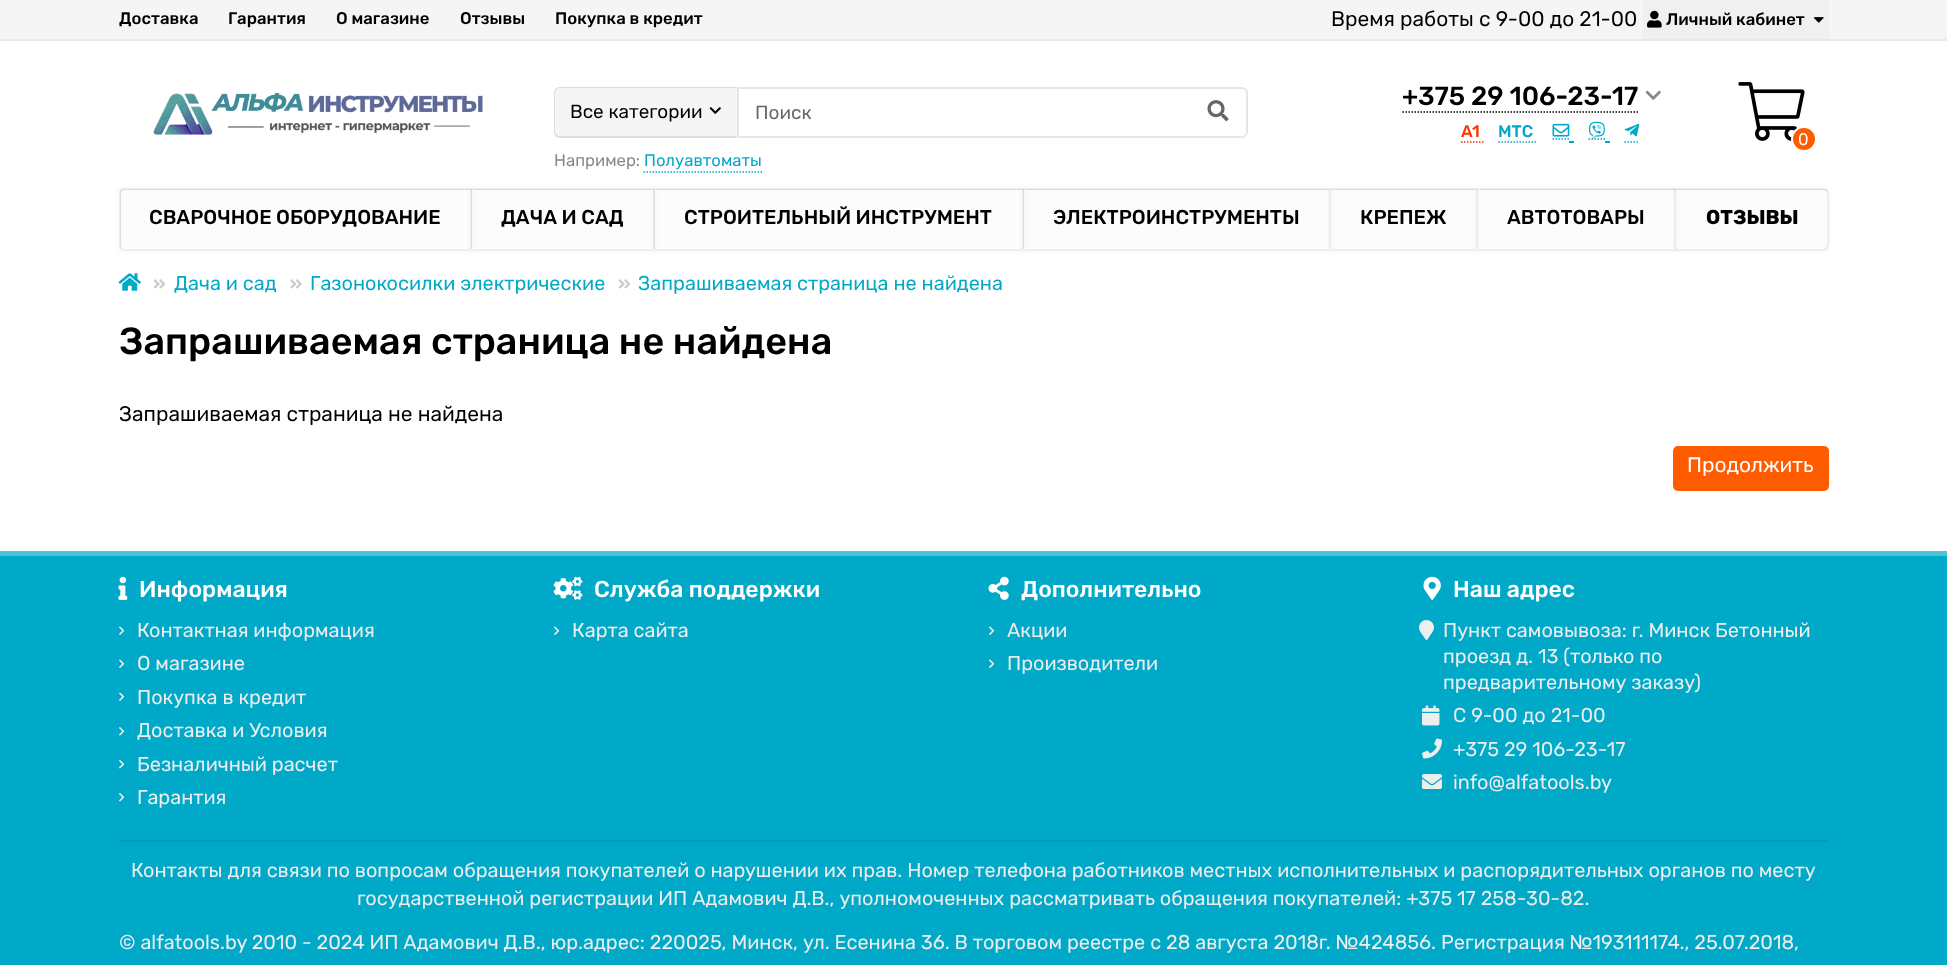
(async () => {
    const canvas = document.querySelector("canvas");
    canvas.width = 1947;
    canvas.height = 965;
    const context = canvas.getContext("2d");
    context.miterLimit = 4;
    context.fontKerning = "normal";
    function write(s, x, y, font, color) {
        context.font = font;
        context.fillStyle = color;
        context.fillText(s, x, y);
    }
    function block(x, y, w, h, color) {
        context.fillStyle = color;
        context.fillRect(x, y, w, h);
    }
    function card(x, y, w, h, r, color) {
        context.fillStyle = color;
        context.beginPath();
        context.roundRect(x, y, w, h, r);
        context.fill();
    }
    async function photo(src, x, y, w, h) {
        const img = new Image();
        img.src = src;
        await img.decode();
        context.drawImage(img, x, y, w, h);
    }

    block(0, 0, 1947, 965, "rgb(255, 255, 255)");
    block(0, 0, 1947, 39, "rgb(245, 245, 245)");
    block(0, 39, 1947, 2, "rgb(233, 233, 233)");
    write("Доставка", 119, 24, "500 16.75px Rubik", "rgb(0, 0, 0)");
    write("Гарантия", 228, 24, "500 16.75px Rubik", "rgb(0, 0, 0)");
    write("О магазине", 336, 24, "500 16.75px Rubik", "rgb(0, 0, 0)");
    write("Отзывы", 460, 24, "500 16.75px Rubik", "rgb(0, 0, 0)");
    write("Покупка в кредит", 555, 24, "500 16.75px Rubik", "rgb(0, 0, 0)");
    write("Время работы с 9-00 до 21-00", 1331, 26, "21px Rubik", "rgb(0, 0, 0)");
    block(1643, 0, 186, 39, "rgb(240, 240, 240)");
    await photo("media/1.png", 1647, 10, 15, 18);
    write("Личный кабинет", 1666, 25, "500 16.75px Rubik", "rgb(0, 0, 0)");
    await photo("media/2.png", 1813, 17, 11, 6);
    await photo("media/3.png", 153, 92, 330, 43);
    context.fillStyle = "rgb(245, 245, 245)";
    context.beginPath();
    context.roundRect(554, 87, 183, 51, [6, 0, 0, 6]);
    context.fill();
    context.fillStyle = "rgba(0, 0, 0, 0.1)";
    context.beginPath();
    context.moveTo(560, 87);
    context.lineTo(736, 87);
    context.lineTo(736, 138);
    context.lineTo(560, 138);
    context.bezierCurveTo(556, 138, 554, 135, 554, 132);
    context.lineTo(554, 93);
    context.bezierCurveTo(554, 90, 556, 87, 560, 87);
    context.closePath();
    context.moveTo(560, 88);
    context.lineTo(736, 88);
    context.lineTo(736, 136);
    context.lineTo(560, 136);
    context.bezierCurveTo(557, 136, 555, 134, 555, 132);
    context.lineTo(555, 93);
    context.bezierCurveTo(555, 91, 557, 88, 560, 88);
    context.closePath();
    context.fill("evenodd");
    write("Все категории", 570, 118, "19px Rubik", "rgb(0, 0, 0)");
    await photo("media/4.png", 709, 107, 12, 7);
    context.beginPath();
    context.roundRect(738, 88, 509, 49, [0, 5, 5, 0]);
    context.strokeStyle = "rgb(230, 230, 230)";
    context.lineWidth = 2;
    context.stroke();
    write("Поиск", 755, 119, "19px Rubik", "rgb(102, 102, 102)");
    await photo("media/5.png", 1207, 100, 22, 22);
    write("Например:", 554, 166, "16.75px Rubik", "rgb(136, 136, 136)");
    write("Полуавтоматы", 644, 166, "16.75px Rubik", "rgb(0, 169, 200)");
    context.beginPath();
    context.moveTo(643.5, 172);
    context.lineTo(762, 172);
    context.strokeStyle = "rgb(0, 169, 200)";
    context.lineWidth = 1.5;
    context.setLineDash([1.5, 1.5]);
    context.stroke();
    write("+375 29 106-23-17", 1402, 105, "500 26.25px Rubik", "rgb(0, 0, 0)");
    context.beginPath();
    context.moveTo(1402.5, 112);
    context.lineTo(1638, 112);
    context.strokeStyle = "rgb(0, 0, 0)";
    context.stroke();
    await photo("media/6.png", 1645, 90, 16, 10);
    write("A1", 1461, 137, "500 16.75px Rubik", "rgb(255, 50, 0)");
    context.beginPath();
    context.moveTo(1461, 142);
    context.lineTo(1483.5, 142);
    context.strokeStyle = "rgb(255, 50, 0)";
    context.stroke();
    write("МТС", 1498, 137, "500 16.75px Rubik", "rgb(0, 169, 200)");
    context.beginPath();
    context.moveTo(1498.5, 142);
    context.lineTo(1537.5, 142);
    context.strokeStyle = "rgb(0, 169, 200)";
    context.stroke();
    context.beginPath();
    context.moveTo(1552.5, 139);
    context.lineTo(1569, 139);
    context.stroke();
    block(1569, 141, 5, 2, "rgb(0, 169, 200)");
    await photo("media/7.png", 1552, 123, 18, 14);
    context.beginPath();
    context.moveTo(1588.5, 139);
    context.lineTo(1605, 139);
    context.stroke();
    block(1605, 141, 5, 2, "rgb(0, 169, 200)");
    await photo("media/8.png", 1588, 121, 17, 18);
    context.beginPath();
    context.moveTo(1624.5, 142);
    context.lineTo(1638, 142);
    context.stroke();
    await photo("media/9.png", 1624, 123, 16, 14);
    await photo("media/10.png", 1738, 82, 67, 59);
    context.fillStyle = "rgb(255, 92, 0)";
    context.beginPath();
    context.arc(1804, 139, 12, 0, Math.PI * 2);
    context.fill();
    context.strokeStyle = "rgb(255, 255, 255)";
    context.lineWidth = 2;
    context.setLineDash([]);
    context.stroke();
    write("0", 1798, 145, "16.75px Rubik", "rgb(255, 255, 255)");
    card(119, 188, 1710, 60, 6, "rgb(252, 252, 252)");
    context.beginPath();
    context.roundRect(120, 189, 1708, 61, 5);
    context.strokeStyle = "rgba(0, 0, 0, 0.12)";
    context.stroke();
    context.save();
    context.beginPath();
    context.moveTo(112, 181);
    context.lineTo(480, 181);
    context.lineTo(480, 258);
    context.lineTo(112, 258);
    context.closePath();
    context.moveTo(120, 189);
    context.lineTo(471, 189);
    context.lineTo(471, 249);
    context.lineTo(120, 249);
    context.closePath();
    context.clip("evenodd");
    context.fillStyle = "rgb(245, 245, 245)";
    context.filter = "blur(2px)";
    context.beginPath();
    context.rect(119, 188, 354, 63);
    context.fill();
    context.filter = "none";
    context.restore();
    block(470, 189, 2, 60, "rgba(0, 0, 0, 0.12)");
    write("СВАРОЧНОЕ ОБОРУДОВАНИЕ", 149, 224, "500 19.95px Rubik", "rgb(0, 0, 0)");
    context.save();
    context.beginPath();
    context.moveTo(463, 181);
    context.lineTo(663, 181);
    context.lineTo(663, 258);
    context.lineTo(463, 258);
    context.closePath();
    context.moveTo(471, 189);
    context.lineTo(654, 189);
    context.lineTo(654, 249);
    context.lineTo(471, 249);
    context.closePath();
    context.clip("evenodd");
    context.fillStyle = "rgb(245, 245, 245)";
    context.filter = "blur(2px)";
    context.beginPath();
    context.rect(470, 188, 186, 63);
    context.fill();
    context.filter = "none";
    context.restore();
    block(653, 189, 2, 60, "rgba(0, 0, 0, 0.12)");
    block(471, 189, 2, 60, "rgba(255, 255, 255, 0.15)");
    write("ДАЧА И САД", 501, 224, "500 19.95px Rubik", "rgb(0, 0, 0)");
    context.save();
    context.beginPath();
    context.moveTo(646, 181);
    context.lineTo(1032, 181);
    context.lineTo(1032, 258);
    context.lineTo(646, 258);
    context.closePath();
    context.moveTo(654, 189);
    context.lineTo(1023, 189);
    context.lineTo(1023, 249);
    context.lineTo(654, 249);
    context.closePath();
    context.clip("evenodd");
    context.fillStyle = "rgb(245, 245, 245)";
    context.filter = "blur(2px)";
    context.beginPath();
    context.rect(653, 188, 372, 63);
    context.fill();
    context.filter = "none";
    context.restore();
    block(1022, 189, 2, 60, "rgba(0, 0, 0, 0.12)");
    block(654, 189, 2, 60, "rgba(255, 255, 255, 0.15)");
    write("СТРОИТЕЛЬНЫЙ ИНСТРУМЕНТ", 684, 224, "500 19.95px Rubik", "rgb(0, 0, 0)");
    context.save();
    context.beginPath();
    context.moveTo(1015, 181);
    context.lineTo(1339, 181);
    context.lineTo(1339, 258);
    context.lineTo(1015, 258);
    context.closePath();
    context.moveTo(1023, 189);
    context.lineTo(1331, 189);
    context.lineTo(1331, 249);
    context.lineTo(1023, 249);
    context.closePath();
    context.clip("evenodd");
    context.fillStyle = "rgb(245, 245, 245)";
    context.filter = "blur(2px)";
    context.beginPath();
    context.rect(1022, 188, 310, 63);
    context.fill();
    context.filter = "none";
    context.restore();
    block(1329, 189, 2, 60, "rgba(0, 0, 0, 0.12)");
    block(1023, 189, 2, 60, "rgba(255, 255, 255, 0.15)");
    write("ЭЛЕКТРОИНСТРУМЕНТЫ", 1053, 224, "500 19.95px Rubik", "rgb(0, 0, 0)");
    context.save();
    context.beginPath();
    context.moveTo(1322, 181);
    context.lineTo(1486, 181);
    context.lineTo(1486, 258);
    context.lineTo(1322, 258);
    context.closePath();
    context.moveTo(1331, 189);
    context.lineTo(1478, 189);
    context.lineTo(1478, 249);
    context.lineTo(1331, 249);
    context.closePath();
    context.clip("evenodd");
    context.fillStyle = "rgb(245, 245, 245)";
    context.filter = "blur(2px)";
    context.beginPath();
    context.rect(1329, 188, 150, 63);
    context.fill();
    context.filter = "none";
    context.restore();
    block(1476, 189, 2, 60, "rgba(0, 0, 0, 0.12)");
    block(1331, 189, 2, 1, "rgba(255, 255, 255, 0.15)");
    write("КРЕПЕЖ", 1360, 224, "500 19.95px Rubik", "rgb(0, 0, 0)");
    context.save();
    context.beginPath();
    context.moveTo(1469, 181);
    context.lineTo(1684, 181);
    context.lineTo(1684, 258);
    context.lineTo(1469, 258);
    context.closePath();
    context.moveTo(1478, 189);
    context.lineTo(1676, 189);
    context.lineTo(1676, 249);
    context.lineTo(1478, 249);
    context.closePath();
    context.clip("evenodd");
    context.fillStyle = "rgb(245, 245, 245)";
    context.filter = "blur(2px)";
    context.beginPath();
    context.rect(1476, 188, 201, 63);
    context.fill();
    context.filter = "none";
    context.restore();
    block(1674, 189, 2, 60, "rgba(0, 0, 0, 0.12)");
    block(1478, 189, 2, 1, "rgba(255, 255, 255, 0.15)");
    write("АВТОТОВАРЫ", 1507, 224, "500 19.95px Rubik", "rgb(0, 0, 0)");
    context.save();
    context.beginPath();
    context.moveTo(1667, 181);
    context.lineTo(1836, 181);
    context.lineTo(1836, 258);
    context.lineTo(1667, 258);
    context.closePath();
    context.moveTo(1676, 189);
    context.lineTo(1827, 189);
    context.lineTo(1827, 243);
    context.bezierCurveTo(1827, 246.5, 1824.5, 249, 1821, 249);
    context.lineTo(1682, 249);
    context.bezierCurveTo(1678.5, 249, 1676, 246.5, 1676, 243);
    context.closePath();
    context.clip("evenodd");
    context.fillStyle = "rgb(245, 245, 245)";
    context.filter = "blur(2px)";
    context.beginPath();
    context.roundRect(1674, 188, 155, 63, 8);
    context.fill();
    context.filter = "none";
    context.restore();
    block(1676, 189, 2, 1, "rgba(255, 255, 255, 0.15)");
    write("ОТЗЫВЫ", 1706, 224, "bold 19.95px Rubik", "rgb(0, 0, 0)");
    await photo("media/11.png", 118, 273, 23, 18);
    await photo("media/12.png", 153, 279, 13, 10);
    write("Дача и сад", 174, 290, "19.95px Rubik", "rgb(0, 169, 200)");
    await photo("media/13.png", 290, 279, 12, 10);
    write("Газонокосилки электрические", 310, 290, "19.95px Rubik", "rgb(0, 169, 200)");
    await photo("media/12.png", 618, 279, 13, 10);
    write("Запрашиваемая страница не найдена", 638, 290, "19.95px Rubik", "rgb(0, 169, 200)");
    write("Запрашиваемая страница не найдена", 119, 354, "500 37.75px Rubik", "rgb(0, 0, 0)");
    write("Запрашиваемая страница не найдена", 119, 421, "21px Rubik", "rgb(0, 0, 0)");
    card(1673, 446, 156, 45, 5, "rgb(255, 92, 0)");
    write("Продолжить", 1687, 472, "21px Rubik", "rgb(255, 255, 255)");
    block(0, 556, 1947, 409, "rgb(0, 169, 200)");
    block(0, 551, 1947, 5, "rgb(77, 195, 217)");
    await photo("media/14.png", 118, 576, 10, 24);
    write("Информация", 139, 597, "500 23px Rubik", "rgb(255, 255, 255)");
    await photo("media/15.png", 119, 626, 6, 9);
    write("Контактная информация", 137, 637, "19.95px Rubik", "rgb(238, 238, 238)");
    await photo("media/15.png", 119, 659, 6, 9);
    write("О магазине", 137, 670, "19.95px Rubik", "rgb(238, 238, 238)");
    await photo("media/15.png", 119, 692, 6, 9);
    write("Покупка в кредит", 137, 704, "19.95px Rubik", "rgb(238, 238, 238)");
    await photo("media/16.png", 119, 727, 6, 9);
    write("Доставка и Условия", 137, 737, "19.95px Rubik", "rgb(238, 238, 238)");
    await photo("media/16.png", 119, 760, 6, 9);
    write("Безналичный расчет", 137, 771, "19.95px Rubik", "rgb(238, 238, 238)");
    await photo("media/16.png", 119, 793, 6, 9);
    write("Гарантия", 137, 804, "19.95px Rubik", "rgb(238, 238, 238)");
    await photo("media/17.png", 553, 576, 30, 24);
    write("Служба поддержки", 594, 597, "500 23px Rubik", "rgb(255, 255, 255)");
    await photo("media/15.png", 554, 626, 6, 9);
    write("Карта сайта", 572, 637, "19.95px Rubik", "rgb(238, 238, 238)");
    await photo("media/18.png", 988, 576, 21, 24);
    write("Дополнительно", 1021, 597, "500 23px Rubik", "rgb(255, 255, 255)");
    await photo("media/15.png", 989, 626, 6, 9);
    write("Акции", 1007, 637, "19.95px Rubik", "rgb(238, 238, 238)");
    await photo("media/15.png", 989, 659, 6, 9);
    write("Производители", 1007, 670, "19.95px Rubik", "rgb(238, 238, 238)");
    await photo("media/19.png", 1423, 576, 18, 24);
    write("Наш адрес", 1453, 597, "500 23px Rubik", "rgb(255, 255, 255)");
    await photo("media/20.png", 1419, 620, 15, 20);
    write("Пункт самовывоза: г. Минск Бетонный", 1443, 637, "19.95px Rubik", "rgb(238, 238, 238)");
    write("проезд д. 13 (только по", 1443, 663, "19.95px Rubik", "rgb(238, 238, 238)");
    write("предварительному заказу)", 1443, 689, "19.95px Rubik", "rgb(238, 238, 238)");
    await photo("media/21.png", 1422, 705, 18, 21);
    write("С 9-00 до 21-00", 1453, 722, "19.95px Rubik", "rgb(238, 238, 238)");
    await photo("media/22.png", 1422, 738, 20, 21);
    write("+375 29 106-23-17", 1453, 756, "19.95px Rubik", "rgb(238, 238, 238)");
    await photo("media/23.png", 1422, 774, 20, 15);
    write("info@alfatools.by", 1453, 789, "19.95px Rubik", "rgb(238, 238, 238)");
    block(119, 840, 1710, 2, "rgb(0, 155, 184)");
    write("Контакты для связи по вопросам обращения покупателей о нарушении их прав. Номер телефона работников местных исполнительных и распорядительных органов по месту", 131, 877, "19.95px Rubik", "rgb(238, 238, 238)");
    write("государственной регистрации ИП Адамович Д.В., уполномоченных рассматривать обращения покупателей: +375 17 258-30-82.", 357, 905, "19.95px Rubik", "rgb(238, 238, 238)");
    write("© alfatools.by 2010 - 2024 ИП Адамович Д.В., юр.адрес: 220025, Минск, ул. Есенина 36. В торговом реестре с 28 августа 2018г. №424856. Регистрация №193111174., 25.07.2018,", 119, 949, "19.95px Rubik", "rgb(238, 238, 238)");
})();
